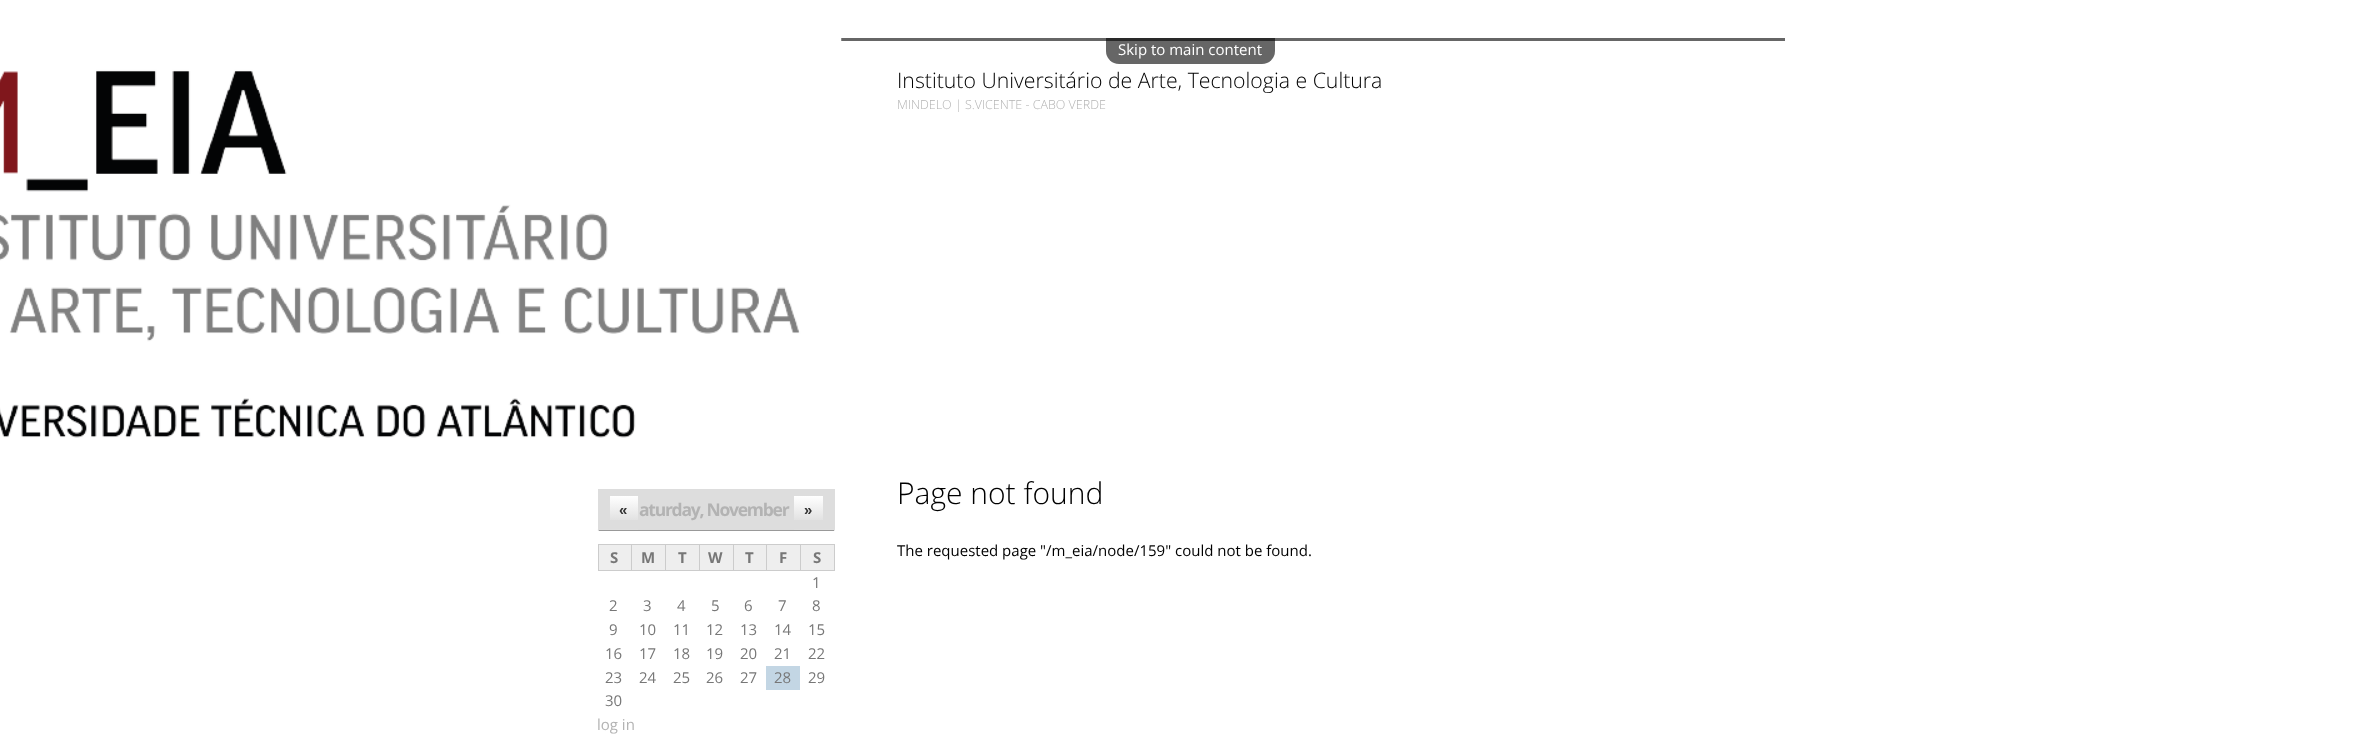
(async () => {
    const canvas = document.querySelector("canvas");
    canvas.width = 2368;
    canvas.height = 753;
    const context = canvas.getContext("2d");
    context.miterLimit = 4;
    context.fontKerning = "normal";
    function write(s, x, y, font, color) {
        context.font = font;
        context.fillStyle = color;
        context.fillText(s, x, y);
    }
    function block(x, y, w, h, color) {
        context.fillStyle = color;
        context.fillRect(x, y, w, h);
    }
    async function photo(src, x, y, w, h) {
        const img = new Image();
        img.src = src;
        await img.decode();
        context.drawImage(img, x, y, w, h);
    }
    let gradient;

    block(0, 0, 2368, 753, "rgb(255, 255, 255)");
    block(841, 38, 944, 3, "rgb(102, 102, 102)");
    context.fillStyle = "rgba(0, 0, 0, 0.6)";
    context.beginPath();
    context.roundRect(1106, 38, 169, 26, [0, 0, 13, 13]);
    context.fill();
    write("Skip to main content", 1118, 55, "15px Open Sans", "rgb(255, 255, 255)");
    await photo("media/1.png", 0, 38, 842, 400);
    write("Instituto Universitário de Arte, Tecnologia e Cultura", 897, 88, "300 21.25px Open Sans", "rgb(0, 0, 0)");
    write("MINDELO | S.VICENTE - CABO VERDE", 897, 109, "300 12.5px Open Sans", "rgb(179, 179, 179)");
    block(598, 489, 237, 40, "rgb(221, 221, 221)");
    context.letterSpacing = "-1.25px";
    write("aturday, November", 639, 516, "bold 17.5px Open Sans", "rgb(179, 179, 179)");
    block(638, 529, 156, 1, "rgb(221, 221, 221)");
    context.beginPath();
    context.moveTo(834, 529.5);
    context.lineTo(834, 530.5);
    context.strokeStyle = "rgb(187, 187, 187)";
    context.lineWidth = 1.2;
    context.stroke();
    block(599, 530, 235, 1, "rgb(153, 153, 153)");
    context.beginPath();
    context.moveTo(598.5, 530.5);
    context.lineTo(598.5, 529.5);
    context.stroke();
    block(599, 529, 39, 1, "rgb(223, 223, 223)");
    gradient = context.createLinearGradient(610, 496, 610, 524);
    gradient.addColorStop(0, "rgb(255, 255, 255)");
    gradient.addColorStop(1, "rgb(221, 221, 221)");
    context.fillStyle = gradient;
    context.fillRect(610, 496, 28, 24);
    context.letterSpacing = "0px";
    write("«", 619, 515, "bold 15px Liberation Sans", "rgb(51, 51, 51)");
    block(794, 529, 41, 1, "rgb(223, 223, 223)");
    gradient = context.createLinearGradient(794, 496, 794, 524);
    gradient.addColorStop(0, "rgb(255, 255, 255)");
    gradient.addColorStop(1, "rgb(221, 221, 221)");
    context.fillStyle = gradient;
    context.fillRect(794, 496, 29, 24);
    write("»", 804, 515, "bold 15px Liberation Sans", "rgb(51, 51, 51)");
    block(599, 545, 32, 25, "rgb(238, 238, 238)");
    block(800, 544, 35, 1, "rgb(204, 204, 204)");
    block(834, 544, 1, 27, "rgb(204, 204, 204)");
    block(800, 570, 35, 1, "rgb(204, 204, 204)");
    block(800, 544, 1, 27, "rgb(204, 204, 204)");
    block(766, 544, 35, 1, "rgb(204, 204, 204)");
    block(766, 570, 35, 1, "rgb(204, 204, 204)");
    block(766, 544, 1, 27, "rgb(204, 204, 204)");
    block(733, 544, 35, 1, "rgb(204, 204, 204)");
    block(733, 570, 35, 1, "rgb(204, 204, 204)");
    block(733, 544, 1, 27, "rgb(204, 204, 204)");
    block(699, 544, 35, 1, "rgb(204, 204, 204)");
    block(699, 570, 35, 1, "rgb(204, 204, 204)");
    block(699, 544, 1, 27, "rgb(204, 204, 204)");
    block(665, 544, 35, 1, "rgb(204, 204, 204)");
    block(665, 570, 35, 1, "rgb(204, 204, 204)");
    block(665, 544, 1, 27, "rgb(204, 204, 204)");
    block(631, 544, 35, 1, "rgb(204, 204, 204)");
    block(631, 570, 35, 1, "rgb(204, 204, 204)");
    block(631, 544, 1, 27, "rgb(204, 204, 204)");
    block(598, 544, 35, 1, "rgb(204, 204, 204)");
    block(598, 570, 35, 1, "rgb(204, 204, 204)");
    block(598, 544, 1, 27, "rgb(204, 204, 204)");
    write("S", 610, 563, "bold 15px Open Sans", "rgb(119, 119, 119)");
    block(632, 545, 33, 25, "rgb(238, 238, 238)");
    write("M", 641, 563, "bold 15px Open Sans", "rgb(119, 119, 119)");
    block(666, 545, 33, 25, "rgb(238, 238, 238)");
    write("T", 678, 563, "bold 15px Open Sans", "rgb(119, 119, 119)");
    block(700, 545, 33, 25, "rgb(238, 238, 238)");
    write("W", 708, 563, "bold 15px Open Sans", "rgb(119, 119, 119)");
    block(734, 545, 32, 25, "rgb(238, 238, 238)");
    write("T", 745, 563, "bold 15px Open Sans", "rgb(119, 119, 119)");
    block(767, 545, 33, 25, "rgb(238, 238, 238)");
    write("F", 779, 563, "bold 15px Open Sans", "rgb(119, 119, 119)");
    block(801, 545, 33, 25, "rgb(238, 238, 238)");
    write("S", 813, 563, "bold 15px Open Sans", "rgb(119, 119, 119)");
    write("1", 812, 588, "15px Open Sans", "rgb(119, 119, 119)");
    write("2", 609, 611, "15px Open Sans", "rgb(119, 119, 119)");
    write("3", 643, 611, "15px Open Sans", "rgb(119, 119, 119)");
    write("4", 677, 611, "15px Open Sans", "rgb(119, 119, 119)");
    write("5", 711, 611, "15px Open Sans", "rgb(119, 119, 119)");
    write("6", 744, 611, "15px Open Sans", "rgb(119, 119, 119)");
    write("7", 778, 611, "15px Open Sans", "rgb(119, 119, 119)");
    write("8", 812, 611, "15px Open Sans", "rgb(119, 119, 119)");
    write("9", 609, 635, "15px Open Sans", "rgb(119, 119, 119)");
    write("10", 639, 635, "15px Open Sans", "rgb(119, 119, 119)");
    write("11", 673, 635, "15px Open Sans", "rgb(119, 119, 119)");
    write("12", 706, 635, "15px Open Sans", "rgb(119, 119, 119)");
    write("13", 740, 635, "15px Open Sans", "rgb(119, 119, 119)");
    write("14", 774, 635, "15px Open Sans", "rgb(119, 119, 119)");
    write("15", 808, 635, "15px Open Sans", "rgb(119, 119, 119)");
    write("16", 605, 659, "15px Open Sans", "rgb(119, 119, 119)");
    write("17", 639, 659, "15px Open Sans", "rgb(119, 119, 119)");
    write("18", 673, 659, "15px Open Sans", "rgb(119, 119, 119)");
    write("19", 706, 659, "15px Open Sans", "rgb(119, 119, 119)");
    write("20", 740, 659, "15px Open Sans", "rgb(119, 119, 119)");
    write("21", 774, 659, "15px Open Sans", "rgb(119, 119, 119)");
    write("22", 808, 659, "15px Open Sans", "rgb(119, 119, 119)");
    write("23", 605, 683, "15px Open Sans", "rgb(119, 119, 119)");
    write("24", 639, 683, "15px Open Sans", "rgb(119, 119, 119)");
    write("25", 673, 683, "15px Open Sans", "rgb(119, 119, 119)");
    write("26", 706, 683, "15px Open Sans", "rgb(119, 119, 119)");
    write("27", 740, 683, "15px Open Sans", "rgb(119, 119, 119)");
    block(766, 666, 34, 24, "rgb(195, 214, 228)");
    write("28", 774, 683, "15px Open Sans", "rgb(119, 119, 119)");
    write("29", 808, 683, "15px Open Sans", "rgb(119, 119, 119)");
    write("30", 605, 706, "15px Open Sans", "rgb(119, 119, 119)");
    write("Page not found", 897, 504, "300 30px Open Sans", "rgb(0, 0, 0)");
    write("The requested page \"/m_eia/node/159\" could not be found.", 897, 556, "15px Open Sans", "rgb(0, 0, 0)");
    write("log in", 597, 730, "15px Open Sans", "rgb(179, 179, 179)");
})();
